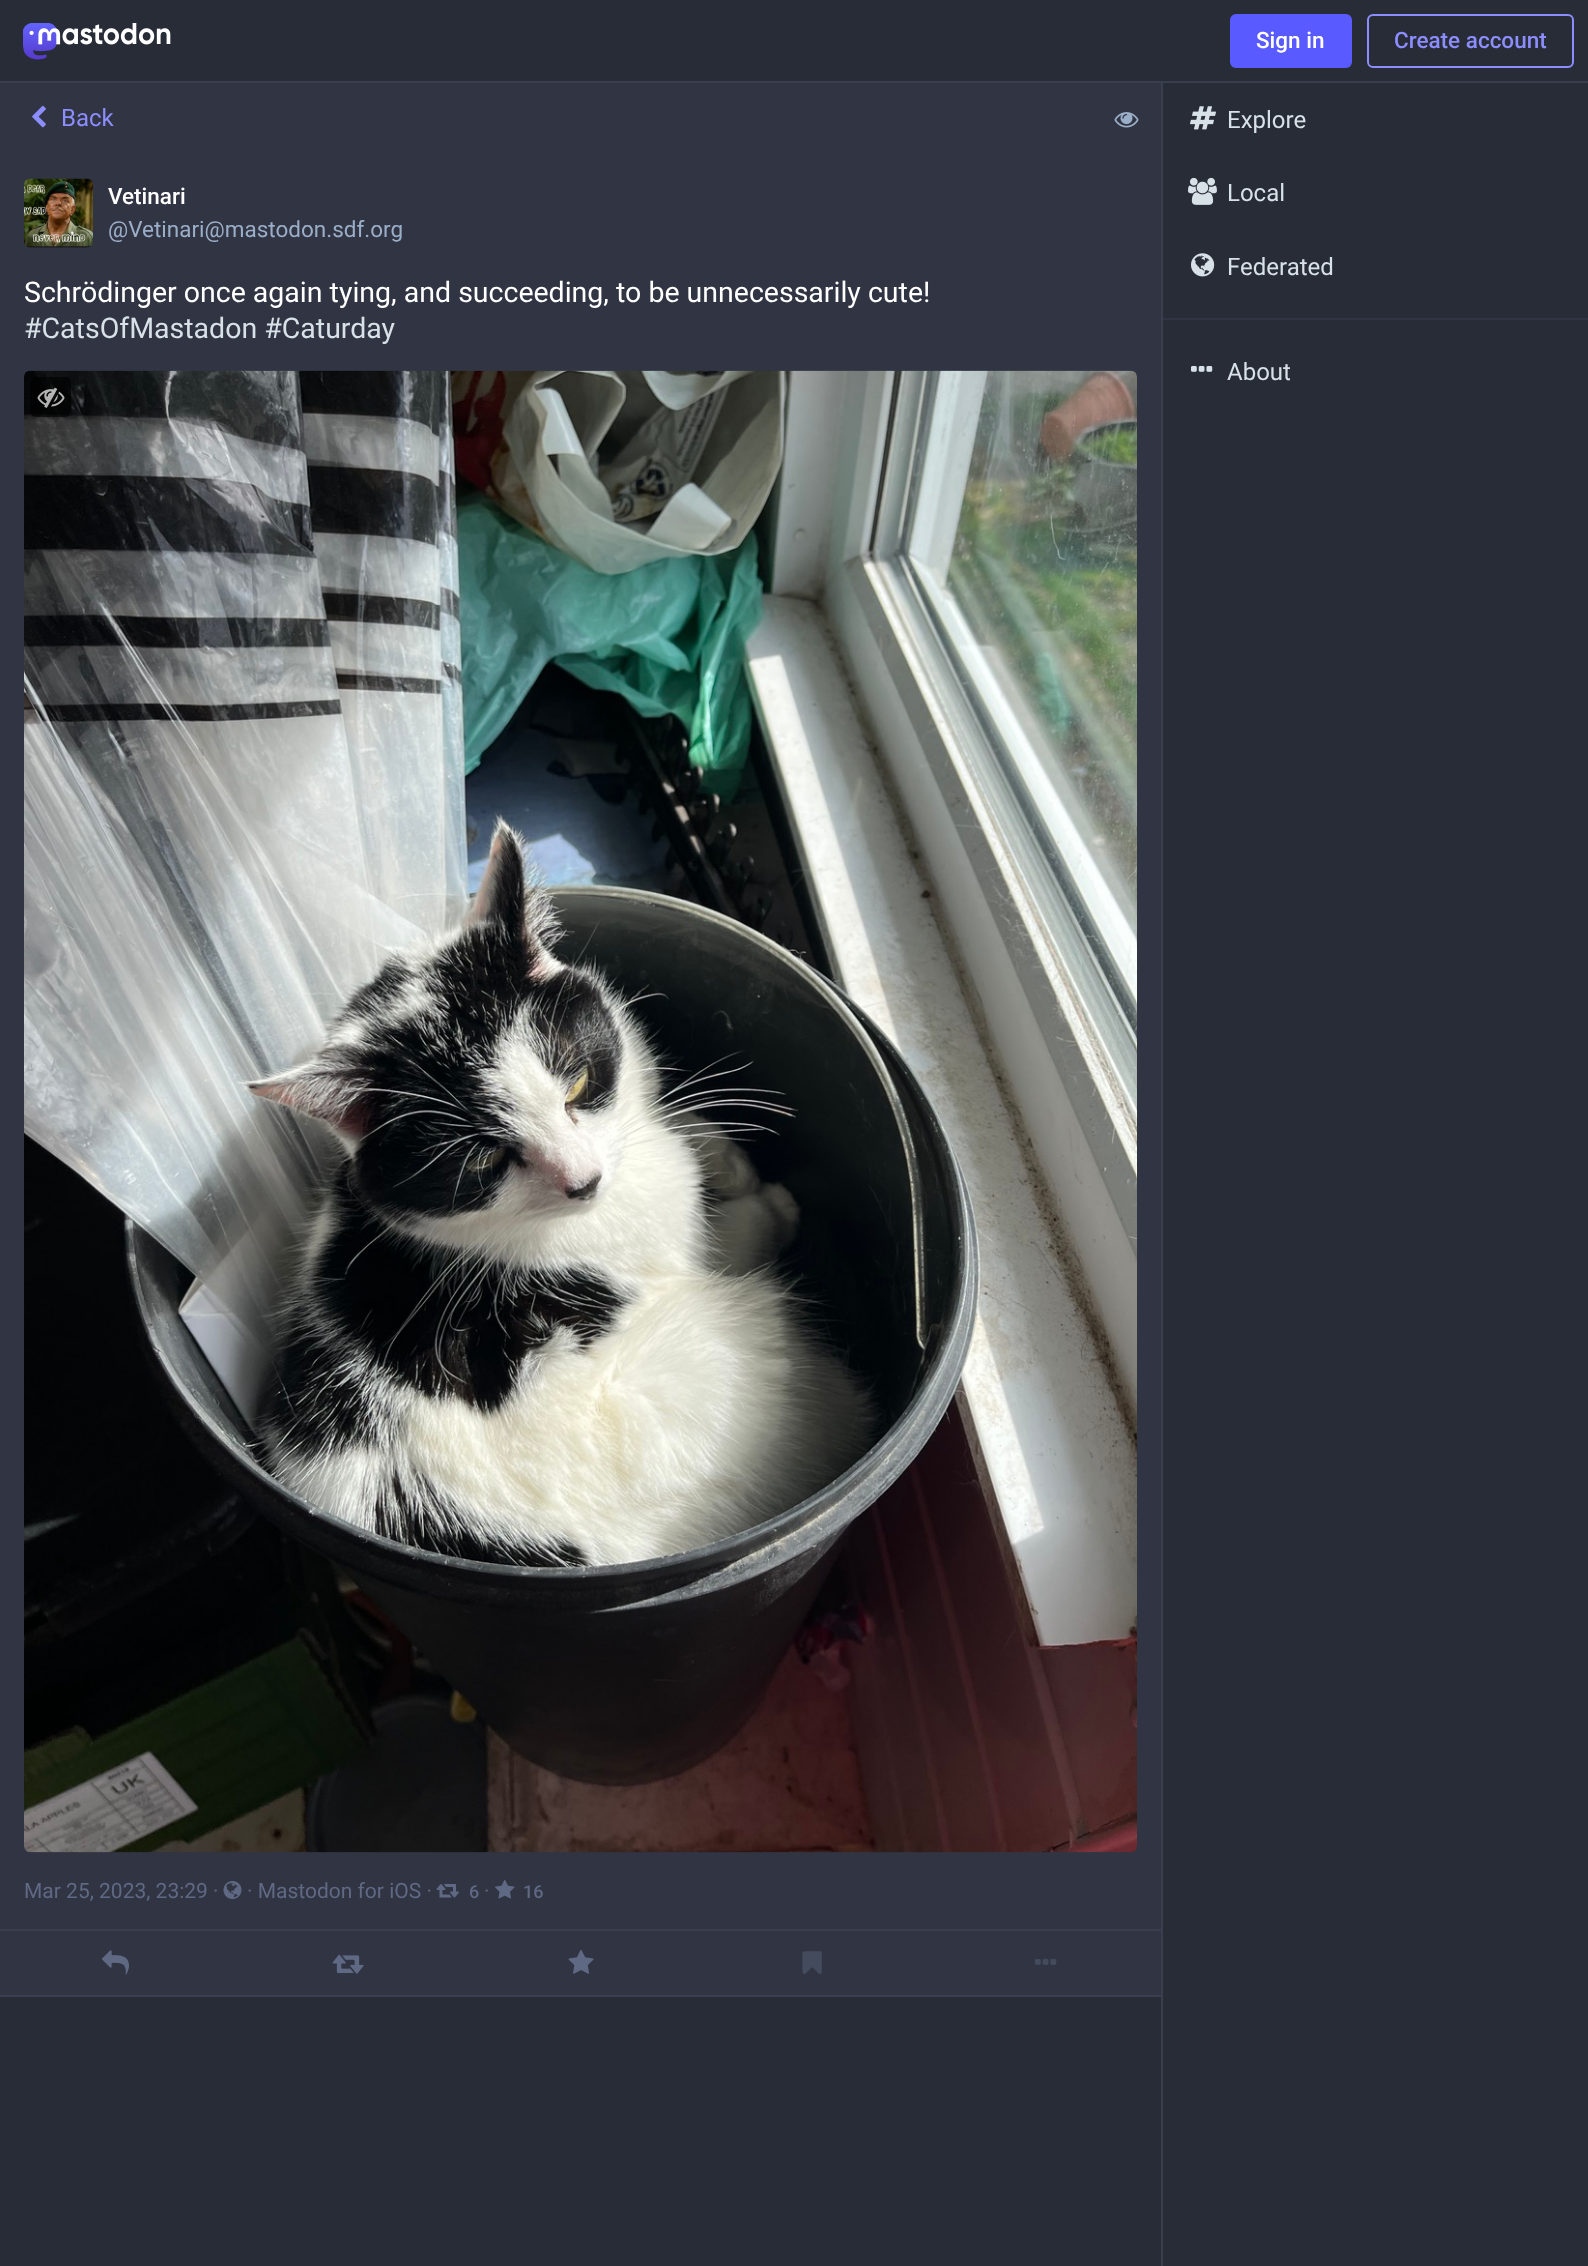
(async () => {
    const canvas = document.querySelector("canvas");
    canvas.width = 1588;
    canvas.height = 2266;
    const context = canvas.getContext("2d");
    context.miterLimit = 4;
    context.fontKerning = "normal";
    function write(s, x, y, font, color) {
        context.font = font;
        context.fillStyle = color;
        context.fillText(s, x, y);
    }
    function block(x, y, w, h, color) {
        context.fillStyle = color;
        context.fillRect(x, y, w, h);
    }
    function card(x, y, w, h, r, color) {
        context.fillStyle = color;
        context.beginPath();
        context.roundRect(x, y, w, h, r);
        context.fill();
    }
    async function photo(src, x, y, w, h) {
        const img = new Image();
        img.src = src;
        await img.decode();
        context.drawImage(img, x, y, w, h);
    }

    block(0, 0, 1588, 2266, "rgb(40, 44, 55)");
    block(0, 81, 1588, 2, "rgb(57, 63, 79)");
    await photo("media/1.png", 23, 23, 148, 37);
    card(1230, 14, 122, 54, 6, "rgb(89, 90, 255)");
    write("Sign in", 1256, 48, "500 22.5px Roboto", "rgb(255, 255, 255)");
    context.beginPath();
    context.roundRect(1368, 15, 205, 52, 5);
    context.strokeStyle = "rgb(140, 141, 255)";
    context.lineWidth = 2;
    context.stroke();
    write("Create account", 1394, 48, "500 22.5px Roboto", "rgb(140, 141, 255)");
    block(0, 83, 1161, 1846, "rgb(49, 53, 67)");
    await photo("media/2.png", 32, 105, 14, 23);
    write("Back", 61, 126, "24px Roboto", "rgb(140, 141, 255)");
    await photo("media/3.png", 1114, 112, 25, 16);
    await photo("media/4.png", 24, 178, 69, 70);
    write("Vetinari", 108, 204, "500 22.5px Roboto", "rgb(255, 255, 255)");
    write("@Vetinari@mastodon.sdf.org", 108, 237, "22.5px Roboto", "rgb(155, 174, 200)");
    write("Schrödinger once again tying, and succeeding, to be unnecessarily cute!", 24, 302, "28.5px Roboto", "rgb(255, 255, 255)");
    write("#CatsOfMastadon #Caturday", 24, 338, "28.5px Roboto", "rgb(217, 225, 232)");
    await photo("media/5.png", 24, 370, 1113, 1483);
    card(30, 377, 41, 40, 6, "rgba(0, 0, 0, 0.6)");
    await photo("media/6.png", 37, 387, 28, 21);
    write("Mar 25, 2023, 23:29 ·", 24, 1898, "21px Roboto", "rgb(96, 105, 132)");
    await photo("media/7.png", 223, 1881, 19, 18);
    write("· Mastodon for iOS ·", 247, 1898, "21px Roboto", "rgb(96, 105, 132)");
    await photo("media/8.png", 436, 1884, 23, 14);
    write("6", 469, 1898, "500 18px Roboto", "rgb(96, 105, 132)");
    write("·", 484, 1898, "21px Roboto", "rgb(96, 105, 132)");
    await photo("media/9.png", 495, 1880, 20, 19);
    write("16", 523, 1898, "500 18px Roboto", "rgb(96, 105, 132)");
    block(0, 1931, 1161, 64, "rgb(49, 53, 67)");
    block(0, 1929, 1161, 2, "rgb(57, 63, 79)");
    block(0, 1995, 1161, 2, "rgb(57, 63, 79)");
    await photo("media/10.png", 102, 1950, 27, 25);
    await photo("media/11.png", 332, 1954, 32, 20);
    await photo("media/12.png", 568, 1950, 26, 24);
    await photo("media/13.png", 802, 1951, 20, 23);
    await photo("media/14.png", 1035, 1959, 22, 6);
    block(1161, 83, 2, 2183, "rgb(57, 63, 79)");
    await photo("media/15.png", 1190, 106, 26, 24);
    write("Explore", 1227, 128, "24px Roboto", "rgb(217, 225, 232)");
    await photo("media/16.png", 1188, 177, 29, 28);
    write("Local", 1227, 201, "24px Roboto", "rgb(217, 225, 232)");
    await photo("media/17.png", 1191, 253, 24, 24);
    write("Federated", 1227, 275, "24px Roboto", "rgb(217, 225, 232)");
    block(1163, 318, 425, 2, "rgb(49, 53, 67)");
    await photo("media/18.png", 1191, 366, 22, 6);
    write("About", 1227, 380, "24px Roboto", "rgb(217, 225, 232)");
})();
